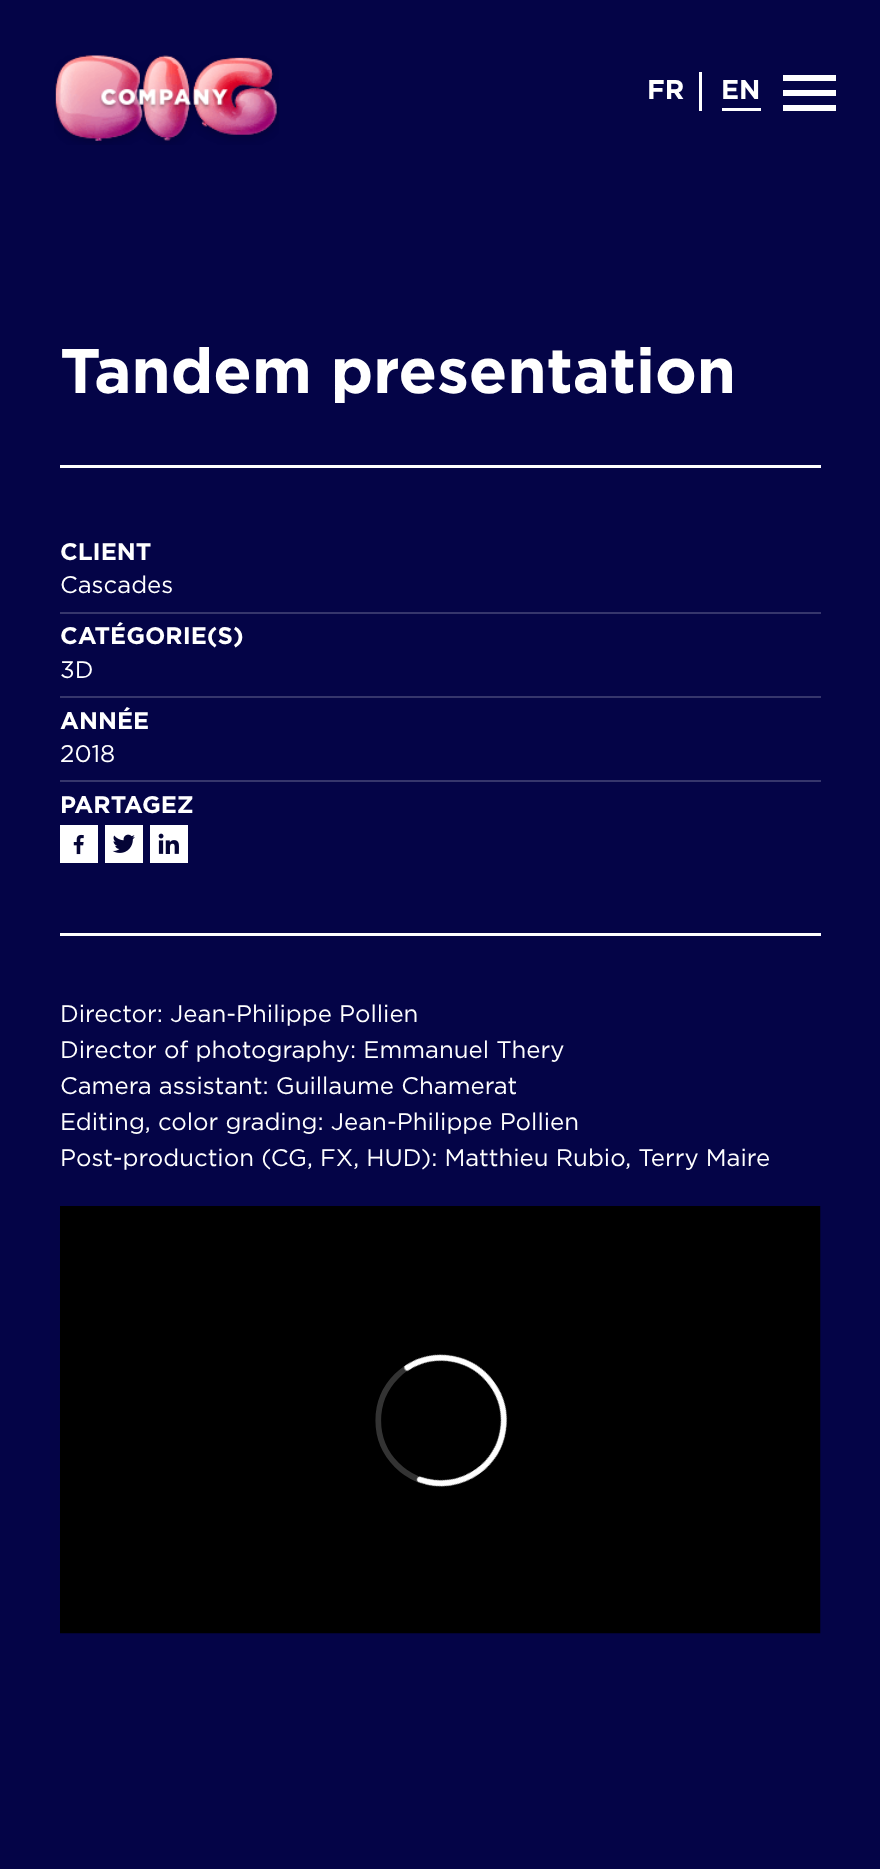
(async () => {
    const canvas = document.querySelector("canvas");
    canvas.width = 880;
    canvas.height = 1869;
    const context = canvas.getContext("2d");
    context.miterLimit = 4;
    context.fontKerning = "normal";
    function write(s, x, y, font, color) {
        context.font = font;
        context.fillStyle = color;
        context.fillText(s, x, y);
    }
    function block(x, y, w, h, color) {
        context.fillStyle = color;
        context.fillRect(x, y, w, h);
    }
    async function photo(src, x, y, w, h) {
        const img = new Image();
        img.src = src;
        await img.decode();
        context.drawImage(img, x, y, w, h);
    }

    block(0, 0, 880, 1869, "rgb(4, 4, 71)");
    await photo("media/1.png", 54, 55, 225, 90);
    await photo("media/2.png", 99, 89, 130, 20);
    block(699, 72, 3, 39, "rgb(255, 255, 255)");
    write("FR", 647, 99, "bold 27px Gotham", "rgb(255, 255, 255)");
    write("EN", 721, 99, "bold 27px Gotham", "rgb(255, 255, 255)");
    block(722, 108, 39, 3, "rgb(255, 255, 255)");
    block(783, 75, 53, 6, "rgb(255, 255, 255)");
    block(783, 90, 53, 6, "rgb(255, 255, 255)");
    block(783, 105, 53, 6, "rgb(255, 255, 255)");
    write("Tandem presentation", 60, 393, "bold 63px Gotham", "rgb(255, 255, 255)");
    block(60, 465, 761, 3, "rgb(255, 255, 255)");
    block(60, 612, 761, 2, "rgb(54, 54, 108)");
    write("CLIENT", 60, 560, "bold 24px Gotham", "rgb(255, 255, 255)");
    write("Cascades", 60, 593, "24px Gotham", "rgb(255, 255, 255)");
    block(60, 696, 761, 2, "rgb(54, 54, 108)");
    write("CATÉGORIE(S)", 60, 644, "bold 24px Gotham", "rgb(255, 255, 255)");
    write("3D", 60, 678, "24px Gotham", "rgb(255, 255, 255)");
    block(60, 780, 761, 2, "rgb(54, 54, 108)");
    write("ANNÉE", 60, 729, "bold 24px Gotham", "rgb(255, 255, 255)");
    write("2018", 60, 762, "24px Gotham", "rgb(255, 255, 255)");
    write("PARTAGEZ", 60, 813, "bold 24px Gotham", "rgb(255, 255, 255)");
    block(60, 825, 38, 38, "rgb(255, 255, 255)");
    await photo("media/3.png", 73, 834, 11, 21);
    block(105, 825, 38, 38, "rgb(255, 255, 255)");
    await photo("media/4.png", 112, 834, 23, 19);
    block(150, 825, 38, 38, "rgb(255, 255, 255)");
    await photo("media/5.png", 158, 833, 21, 21);
    block(60, 933, 761, 3, "rgb(255, 255, 255)");
    write("Director: Jean-Philippe Pollien", 60, 1022, "24px Gotham", "rgb(255, 255, 255)");
    write("Director of photography: Emmanuel Thery", 60, 1058, "24px Gotham", "rgb(255, 255, 255)");
    write("Camera assistant: Guillaume Chamerat", 60, 1094, "24px Gotham", "rgb(255, 255, 255)");
    write("Editing, color grading: Jean-Philippe Pollien", 60, 1130, "24px Gotham", "rgb(255, 255, 255)");
    write("Post-production (CG, FX, HUD): Matthieu Rubio, Terry Maire", 60, 1166, "24px Gotham", "rgb(255, 255, 255)");
    await photo("media/6.png", 60, 1206, 761, 428);
})();
